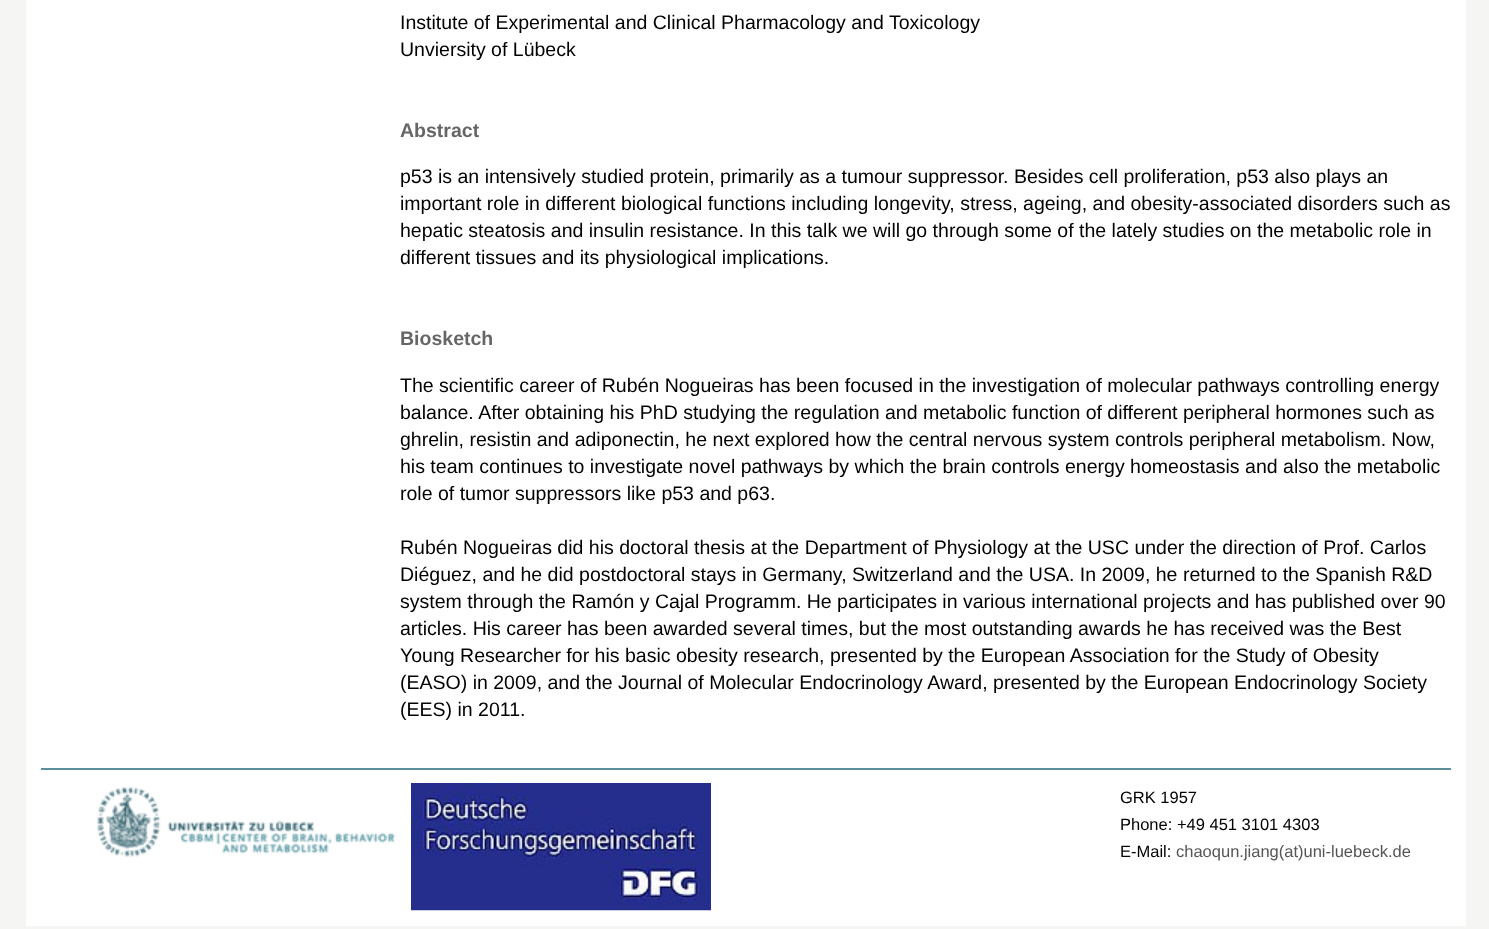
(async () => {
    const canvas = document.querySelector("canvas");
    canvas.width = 1489;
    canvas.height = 929;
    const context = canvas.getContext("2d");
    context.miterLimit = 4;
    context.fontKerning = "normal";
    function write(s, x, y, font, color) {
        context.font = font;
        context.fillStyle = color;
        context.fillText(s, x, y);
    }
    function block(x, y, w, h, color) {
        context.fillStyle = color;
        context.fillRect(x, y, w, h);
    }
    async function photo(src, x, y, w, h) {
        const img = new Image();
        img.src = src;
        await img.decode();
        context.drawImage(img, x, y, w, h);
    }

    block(0, 0, 1489, 929, "rgb(245, 246, 243)");
    block(26, 0, 1440, 926, "rgb(255, 255, 255)");
    write("Institute of Experimental and Clinical Pharmacology and Toxicology", 400, 29, "19.52px Liberation Sans", "rgb(0, 0, 0)");
    write("Unviersity of Lübeck", 400, 56, "19.52px Liberation Sans", "rgb(0, 0, 0)");
    write("Abstract", 400, 137, "bold 19.52px Liberation Sans", "rgb(102, 102, 102)");
    write("p53 is an intensively studied protein, primarily as a tumour suppressor. Besides cell proliferation, p53 also plays an", 400, 183, "19.52px Liberation Sans", "rgb(0, 0, 0)");
    write("important role in different biological functions including longevity, stress, ageing, and obesity-associated disorders such as", 400, 210, "19.52px Liberation Sans", "rgb(0, 0, 0)");
    write("hepatic steatosis and insulin resistance. In this talk we will go through some of the lately studies on the metabolic role in", 400, 237, "19.52px Liberation Sans", "rgb(0, 0, 0)");
    write("different tissues and its physiological implications.", 400, 264, "19.52px Liberation Sans", "rgb(0, 0, 0)");
    write("Biosketch", 400, 345, "bold 19.52px Liberation Sans", "rgb(102, 102, 102)");
    write("The scientific career of Rubén Nogueiras has been focused in the investigation of molecular pathways controlling energy", 400, 392, "19.52px Liberation Sans", "rgb(0, 0, 0)");
    write("balance. After obtaining his PhD studying the regulation and metabolic function of different peripheral hormones such as", 400, 419, "19.52px Liberation Sans", "rgb(0, 0, 0)");
    write("ghrelin, resistin and adiponectin, he next explored how the central nervous system controls peripheral metabolism. Now,", 400, 446, "19.52px Liberation Sans", "rgb(0, 0, 0)");
    write("his team continues to investigate novel pathways by which the brain controls energy homeostasis and also the metabolic", 400, 473, "19.52px Liberation Sans", "rgb(0, 0, 0)");
    write("role of tumor suppressors like p53 and p63.", 400, 500, "19.52px Liberation Sans", "rgb(0, 0, 0)");
    write("Rubén Nogueiras did his doctoral thesis at the Department of Physiology at the USC under the direction of Prof. Carlos", 400, 554, "19.52px Liberation Sans", "rgb(0, 0, 0)");
    write("Diéguez, and he did postdoctoral stays in Germany, Switzerland and the USA. In 2009, he returned to the Spanish R&D", 400, 581, "19.52px Liberation Sans", "rgb(0, 0, 0)");
    write("system through the Ramón y Cajal Programm. He participates in various international projects and has published over 90", 400, 608, "19.52px Liberation Sans", "rgb(0, 0, 0)");
    write("articles. His career has been awarded several times, but the most outstanding awards he has received was the Best", 400, 635, "19.52px Liberation Sans", "rgb(0, 0, 0)");
    write("Young Researcher for his basic obesity research, presented by the European Association for the Study of Obesity", 400, 662, "19.52px Liberation Sans", "rgb(0, 0, 0)");
    write("(EASO) in 2009, and the Journal of Molecular Endocrinology Award, presented by the European Endocrinology Society", 400, 689, "19.52px Liberation Sans", "rgb(0, 0, 0)");
    write("(EES) in 2011.", 400, 716, "19.52px Liberation Sans", "rgb(0, 0, 0)");
    block(41, 768, 1410, 2, "rgb(92, 143, 153)");
    await photo("media/1.png", 97, 787, 298, 70);
    await photo("media/2.png", 411, 783, 300, 128);
    write("GRK 1957", 1120, 803, "16.5px Liberation Sans", "rgb(0, 0, 0)");
    write("Phone: +49 451 3101 4303", 1120, 830, "16.5px Liberation Sans", "rgb(0, 0, 0)");
    write("E-Mail:", 1120, 857, "16.5px Liberation Sans", "rgb(0, 0, 0)");
    write("chaoqun.jiang(at)uni-luebeck.de", 1176, 857, "16.5px Liberation Sans", "rgb(85, 85, 85)");
})();
